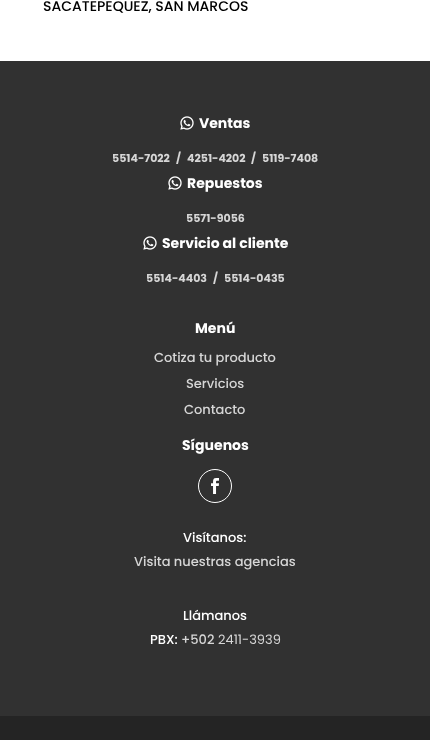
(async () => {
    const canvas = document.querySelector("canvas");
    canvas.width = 430;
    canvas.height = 740;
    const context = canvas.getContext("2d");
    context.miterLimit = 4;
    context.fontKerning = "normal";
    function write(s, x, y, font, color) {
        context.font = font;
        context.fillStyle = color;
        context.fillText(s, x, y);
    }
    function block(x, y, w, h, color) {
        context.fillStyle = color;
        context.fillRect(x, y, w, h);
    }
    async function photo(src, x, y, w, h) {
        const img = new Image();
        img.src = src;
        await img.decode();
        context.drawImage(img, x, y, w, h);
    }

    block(0, 0, 430, 740, "rgb(255, 255, 255)");
    write("SACATEPEQUEZ, SAN MARCOS", 43, 11, "500 14px Poppins", "rgb(0, 0, 0)");
    block(0, 61, 430, 655, "rgb(49, 49, 49)");
    await photo("media/1.png", 180, 116, 14, 14);
    write("Ventas", 199, 128, "bold 14px Poppins", "rgb(255, 255, 255)");
    write("5514-7022", 112, 162, "bold 11px Poppins", "rgb(214, 214, 214)");
    write("/", 176, 162, "bold 11px Poppins", "rgb(214, 214, 214)");
    write("4251-4202", 187, 162, "bold 11px Poppins", "rgb(214, 214, 214)");
    write("/", 251, 162, "bold 11px Poppins", "rgb(214, 214, 214)");
    write("5119-7408", 262, 162, "bold 11px Poppins", "rgb(214, 214, 214)");
    await photo("media/1.png", 168, 176, 14, 14);
    write("Repuestos", 187, 188, "bold 14px Poppins", "rgb(255, 255, 255)");
    write("5571-9056", 186, 222, "bold 11px Poppins", "rgb(214, 214, 214)");
    await photo("media/1.png", 143, 236, 14, 14);
    write("Servicio al cliente", 162, 248, "bold 14px Poppins", "rgb(255, 255, 255)");
    write("5514-4403", 146, 282, "bold 11px Poppins", "rgb(214, 214, 214)");
    write("/", 213, 282, "bold 11px Poppins", "rgb(214, 214, 214)");
    write("5514-0435", 224, 282, "bold 11px Poppins", "rgb(214, 214, 214)");
    write("Menú", 195, 333, "bold 14px Poppins", "rgb(255, 255, 255)");
    write("Cotiza tu producto", 154, 362, "500 13px Poppins", "rgb(214, 214, 214)");
    write("Servicios", 186, 388, "500 13px Poppins", "rgb(214, 214, 214)");
    write("Contacto", 184, 414, "500 13px Poppins", "rgb(214, 214, 214)");
    write("Síguenos", 182, 450, "bold 14px Poppins", "rgb(255, 255, 255)");
    context.beginPath();
    context.arc(215, 486, 16.5, 0, Math.PI * 2);
    context.strokeStyle = "rgb(255, 255, 255)";
    context.stroke();
    await photo("media/2.png", 211, 478, 8, 16);
    write("Visítanos:", 183, 542, "500 13px Poppins", "rgb(255, 255, 255)");
    write("Visita nuestras agencias", 134, 566, "500 13px Poppins", "rgb(214, 214, 214)");
    write("Llámanos", 183, 620, "500 13px Poppins", "rgb(255, 255, 255)");
    write("PBX:", 150, 644, "500 13px Poppins", "rgb(255, 255, 255)");
    write("+502", 181, 644, "500 13px Poppins", "rgb(214, 214, 214)");
    write("2411-3939", 218, 644, "13px Poppins", "rgb(214, 214, 214)");
    block(0, 716, 430, 24, "rgb(36, 36, 36)");
})();
